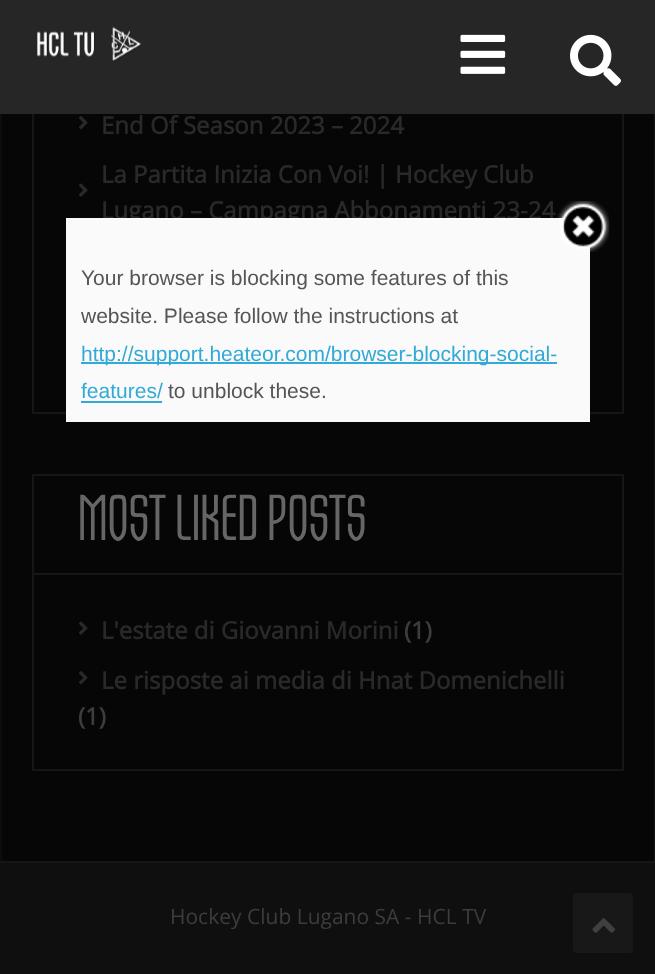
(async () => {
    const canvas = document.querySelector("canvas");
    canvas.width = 655;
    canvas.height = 974;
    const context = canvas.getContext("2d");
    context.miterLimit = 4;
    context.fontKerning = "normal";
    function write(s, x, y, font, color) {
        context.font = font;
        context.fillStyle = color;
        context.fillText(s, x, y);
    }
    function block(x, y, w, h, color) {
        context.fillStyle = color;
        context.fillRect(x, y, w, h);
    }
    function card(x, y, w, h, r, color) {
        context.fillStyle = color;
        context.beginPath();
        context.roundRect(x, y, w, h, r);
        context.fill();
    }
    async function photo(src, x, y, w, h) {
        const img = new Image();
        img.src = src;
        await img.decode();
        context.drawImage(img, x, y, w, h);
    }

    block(0, 0, 655, 974, "rgb(22, 22, 22)");
    block(2, 114, 652, 747, "rgb(6, 6, 6)");
    context.strokeStyle = "rgb(22, 22, 22)";
    context.lineWidth = 2;
    context.strokeRect(33, -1, 590, 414);
    block(0, 0, 655, 114, "rgb(38, 38, 38)");
    await photo("media/1.png", 37, 26, 104, 36);
    await photo("media/2.png", 460, 34, 46, 40);
    await photo("media/3.png", 570, 34, 51, 52);
    block(0, 114, 2, 747, "rgb(12, 12, 12)");
    await photo("media/4.png", 79, 116, 9, 14);
    write("End Of Season 2023 – 2024", 101, 134, "bold 24px Open Sans", "rgb(41, 41, 41)");
    await photo("media/5.png", 79, 183, 9, 14);
    write("La Partita Inizia Con Voi! | Hockey Club", 101, 183, "bold 24px Open Sans", "rgb(41, 41, 41)");
    write("Lugano – Campagna Abbonamenti 23-24", 101, 219, "bold 24px Open Sans", "rgb(41, 41, 41)");
    context.strokeRect(33, 475, 590, 295);
    write("MOST LIKED POSTS", 78, 540, "66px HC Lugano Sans", "rgb(102, 102, 102)");
    block(33, 573, 590, 2, "rgb(22, 22, 22)");
    await photo("media/5.png", 79, 621, 9, 14);
    write("L'estate di Giovanni Morini", 101, 639, "bold 24px Open Sans", "rgb(41, 41, 41)");
    write("(1)", 404, 639, "bold 24px Open Sans", "rgb(61, 61, 61)");
    await photo("media/4.png", 79, 671, 9, 14);
    write("Le risposte ai media di Hnat Domenichelli", 101, 689, "bold 24px Open Sans", "rgb(41, 41, 41)");
    write("(1)", 78, 725, "bold 24px Open Sans", "rgb(61, 61, 61)");
    block(0, 863, 655, 111, "rgb(15, 15, 15)");
    write("Hockey Club Lugano SA - HCL TV", 170, 924, "21px Open Sans", "rgb(61, 61, 61)");
    block(66, 218, 524, 204, "rgb(250, 250, 250)");
    await photo("media/6.png", 556, 201, 54, 51);
    write("Your browser is blocking some features of this", 81, 285, "21px Liberation Sans", "rgb(85, 85, 85)");
    write("website. Please follow the instructions at", 81, 323, "21px Liberation Sans", "rgb(85, 85, 85)");
    block(81, 362, 476, 2, "rgb(51, 169, 216)");
    write("http://support.heateor.com/browser-blocking-social-", 81, 361, "21px Liberation Sans", "rgb(51, 169, 216)");
    write("features/", 81, 398, "21px Liberation Sans", "rgb(51, 169, 216)");
    block(81, 401, 81, 2, "rgb(51, 169, 216)");
    write("to unblock these.", 168, 398, "21px Liberation Sans", "rgb(85, 85, 85)");
    card(573, 893, 60, 60, 3, "rgb(24, 24, 24)");
    await photo("media/7.png", 592, 918, 23, 15);
})();
